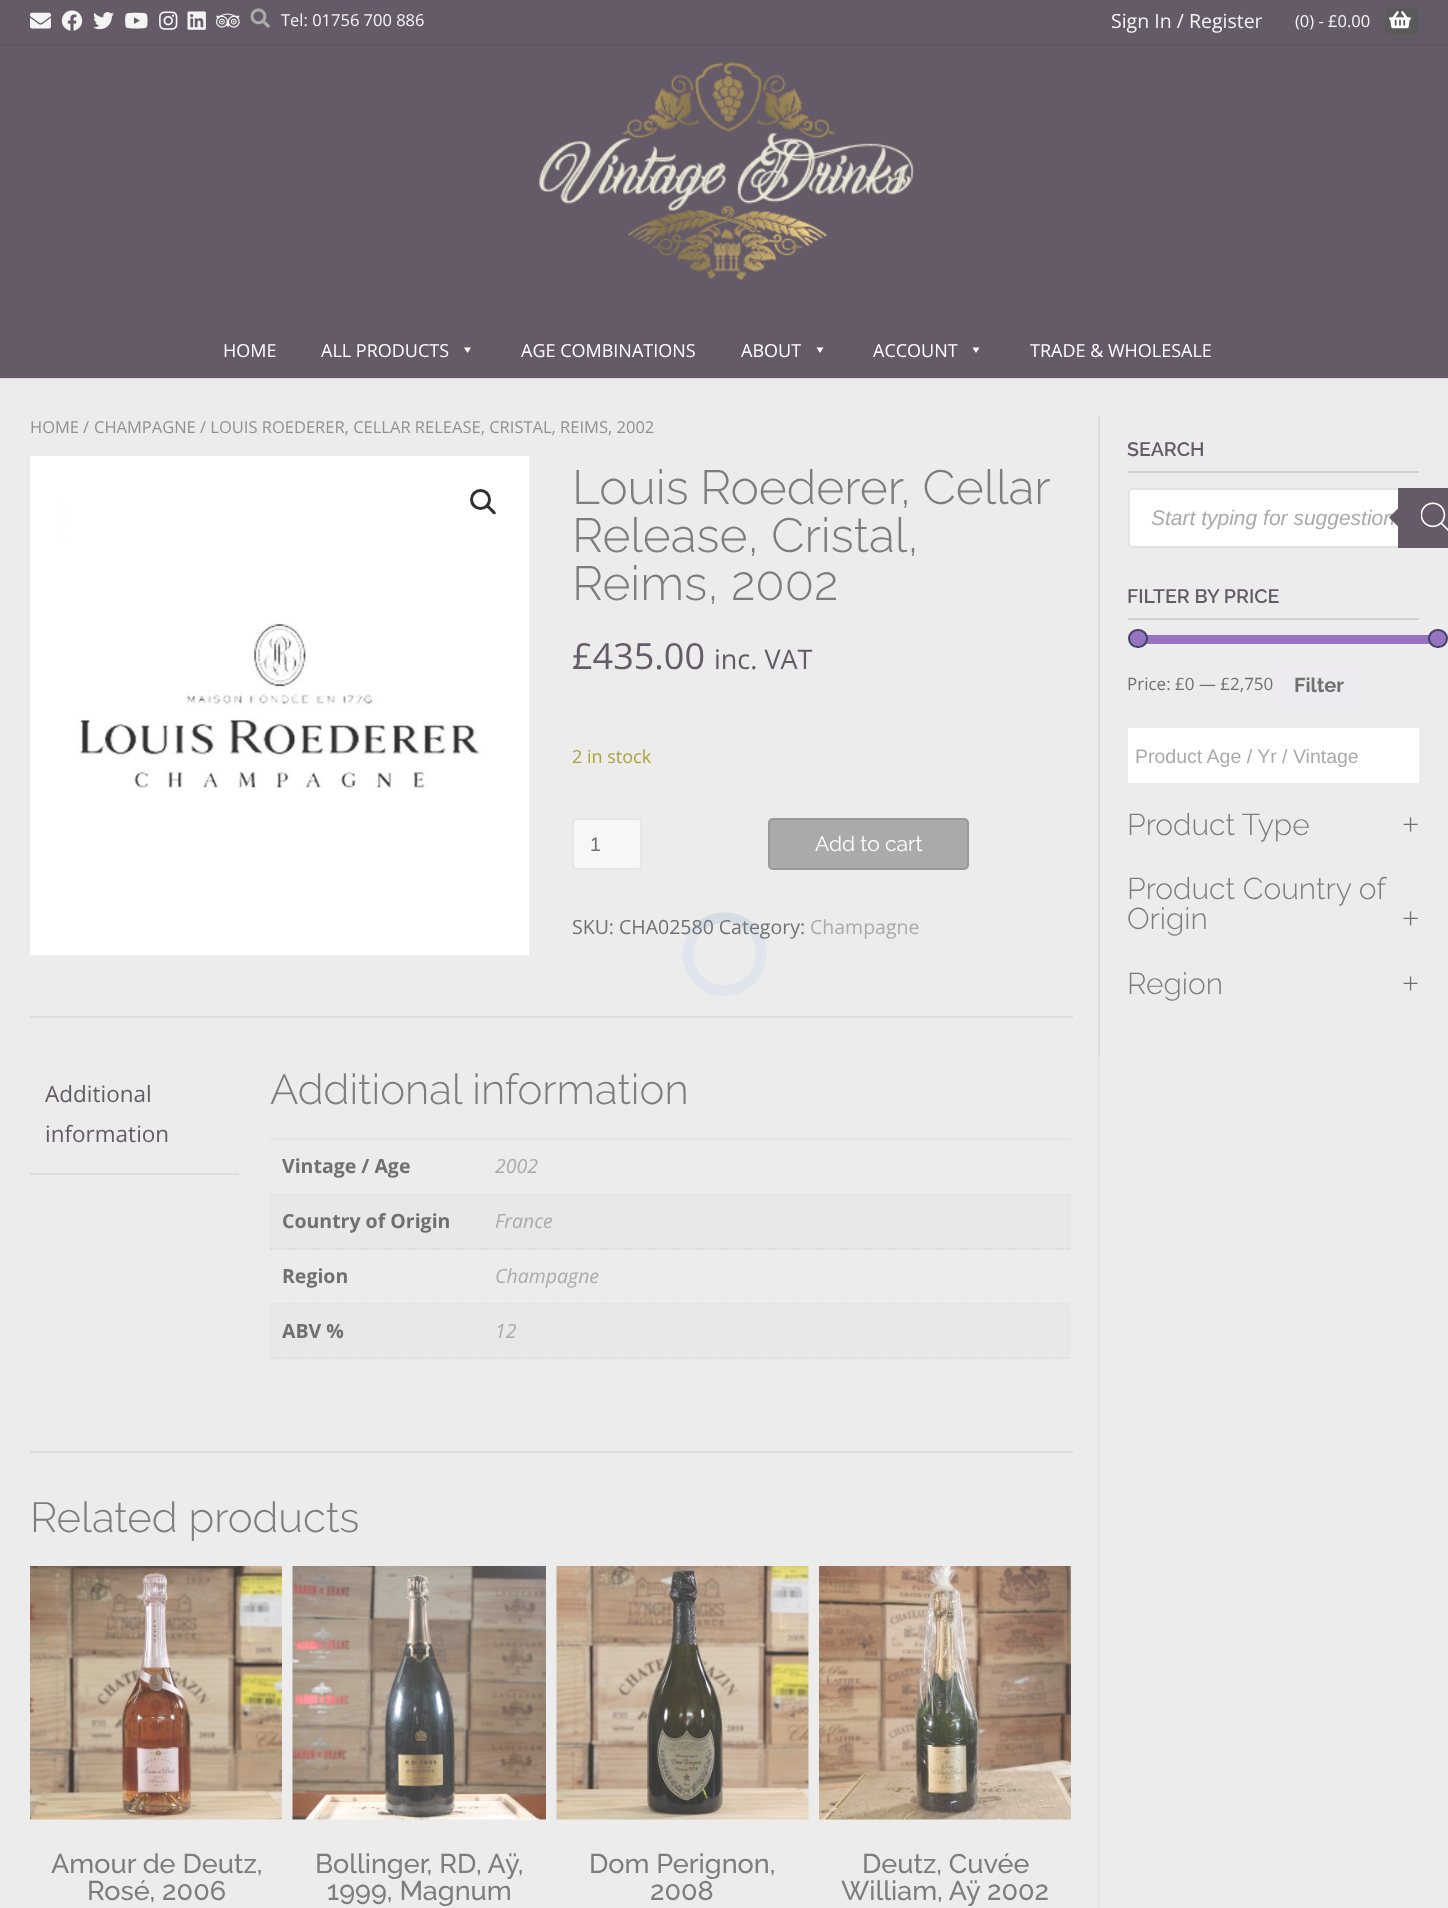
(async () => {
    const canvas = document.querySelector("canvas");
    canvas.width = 1448;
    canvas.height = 1908;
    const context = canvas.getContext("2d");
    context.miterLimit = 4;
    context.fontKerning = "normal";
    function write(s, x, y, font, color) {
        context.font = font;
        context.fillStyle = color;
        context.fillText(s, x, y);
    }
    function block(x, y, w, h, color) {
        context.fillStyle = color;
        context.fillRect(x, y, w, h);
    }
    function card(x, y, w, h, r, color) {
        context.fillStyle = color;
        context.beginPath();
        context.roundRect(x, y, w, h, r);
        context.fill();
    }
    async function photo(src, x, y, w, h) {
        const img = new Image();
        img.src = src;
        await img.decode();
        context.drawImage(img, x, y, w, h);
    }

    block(0, 0, 1448, 1908, "rgb(236, 236, 236)");
    block(0, 0, 1448, 378, "rgb(101, 91, 104)");
    block(0, 377, 1448, 2, "rgba(48, 48, 48, 0.08)");
    block(0, 44, 1448, 2, "rgb(97, 87, 99)");
    await photo("media/1.png", 30, 12, 21, 17);
    await photo("media/2.png", 61, 10, 22, 21);
    await photo("media/3.png", 93, 12, 21, 18);
    await photo("media/4.png", 125, 12, 23, 17);
    await photo("media/5.png", 159, 11, 19, 19);
    await photo("media/6.png", 187, 11, 19, 19);
    await photo("media/7.png", 216, 13, 24, 15);
    await photo("media/8.png", 250, 8, 20, 20);
    write("Tel: 01756 700 886", 281, 26, "16.5px Open Sans", "rgb(244, 244, 244)");
    write("Sign In / Register", 1111, 28, "19.5px Open Sans", "rgb(244, 244, 244)");
    write("(0) - £0.00", 1295, 27, "16.5px Open Sans", "rgb(244, 244, 244)");
    card(1385, 8, 34, 27, 5, "rgb(90, 90, 90)");
    await photo("media/9.png", 1389, 11, 22, 18);
    await photo("media/10.png", 539, 62, 376, 219);
    block(0, 308, 1448, 1, "rgb(97, 87, 99)");
    write("HOME", 223, 357, "18px Open Sans", "rgb(255, 255, 255)");
    write("ALL PRODUCTS", 321, 357, "18px Open Sans", "rgb(255, 255, 255)");
    context.beginPath();
    context.moveTo(471, 347.5);
    context.lineTo(467.5, 353);
    context.lineTo(464, 347.5);
    context.closePath();
    context.fill();
    write("AGE COMBINATIONS", 521, 357, "18px Open Sans", "rgb(255, 255, 255)");
    write("ABOUT", 741, 357, "18px Open Sans", "rgb(255, 255, 255)");
    context.beginPath();
    context.moveTo(823.5, 347.5);
    context.lineTo(820, 353);
    context.lineTo(816.5, 347.5);
    context.closePath();
    context.fill();
    write("ACCOUNT", 873, 357, "18px Open Sans", "rgb(255, 255, 255)");
    context.beginPath();
    context.moveTo(979.5, 347.5);
    context.lineTo(976, 353);
    context.lineTo(972.5, 347.5);
    context.closePath();
    context.fill();
    write("TRADE & WHOLESALE", 1030, 357, "18px Open Sans", "rgb(255, 255, 255)");
    block(1098, 1056, 2, 852, "rgb(229, 229, 229)");
    write("HOME", 30, 433, "16.5px Open Sans", "rgb(144, 144, 144)");
    write("/", 83, 433, "16.5px Open Sans", "rgb(144, 144, 144)");
    write("CHAMPAGNE", 94, 433, "16.5px Open Sans", "rgb(144, 144, 144)");
    write("/ LOUIS ROEDERER, CELLAR RELEASE, CRISTAL, REIMS, 2002", 200, 433, "16.5px Open Sans", "rgb(144, 144, 144)");
    await photo("media/11.png", 30, 456, 500, 500);
    context.beginPath();
    context.arc(480.5, 499.5, 9, 0, Math.PI * 2);
    context.strokeStyle = "rgb(48, 48, 48)";
    context.lineWidth = 3;
    context.stroke();
    context.fillStyle = "rgb(48, 48, 48)";
    context.beginPath();
    context.moveTo(487, 505.5);
    context.bezierCurveTo(488.5, 503.5, 491, 507.5, 492, 508.5);
    context.bezierCurveTo(493, 509.5, 497, 512, 495.5, 514);
    context.bezierCurveTo(493.5, 515.5, 491, 511.5, 490, 510.5);
    context.bezierCurveTo(489, 509.5, 485, 507, 487, 505.5);
    context.closePath();
    context.fill();
    context.wordSpacing = "-1px";
    write("Louis Roederer, Cellar", 572, 504, "300 48px Raleway", "rgb(125, 125, 125)");
    context.wordSpacing = "0px";
    write("Release, Cristal,", 572, 552, "300 48px Raleway", "rgb(125, 125, 125)");
    write("Reims, 2002", 572, 600, "300 48px Raleway", "rgb(125, 125, 125)");
    write("£435.00", 572, 669, "36px Open Sans", "rgb(101, 91, 104)");
    write("inc. VAT", 714, 669, "27px Open Sans", "rgb(101, 91, 104)");
    write("2 in stock", 572, 763, "18px Open Sans", "rgb(169, 163, 56)");
    card(572, 818, 70, 52, 5, "rgb(247, 247, 247)");
    context.beginPath();
    context.roundRect(573, 819, 68, 50, 4);
    context.strokeStyle = "rgba(48, 48, 48, 0.08)";
    context.lineWidth = 2;
    context.stroke();
    write("1", 590, 851, "19.5px Liberation Sans", "rgb(112, 112, 112)");
    card(768, 818, 201, 52, 5, "rgb(170, 170, 170)");
    context.beginPath();
    context.roundRect(769, 819, 199, 50, 4);
    context.strokeStyle = "rgba(48, 48, 48, 0.14)";
    context.stroke();
    write("Add to cart", 815, 851, "21px Raleway", "rgb(255, 255, 255)");
    write("SKU: CHA02580 Category:", 572, 934, "19.5px Open Sans", "rgb(112, 112, 112)");
    write("Champagne", 810, 934, "19.5px Open Sans", "rgb(170, 170, 170)");
    block(30, 1016, 1043, 2, "rgb(221, 221, 221)");
    block(30, 1451, 1043, 2, "rgb(221, 221, 221)");
    block(30, 1173, 209, 2, "rgb(221, 221, 221)");
    write("Additional", 45, 1102, "22.5px Open Sans", "rgb(101, 91, 104)");
    write("information", 45, 1142, "22.5px Open Sans", "rgb(101, 91, 104)");
    write("Additional information", 270, 1104, "300 42px Raleway", "rgb(125, 125, 125)");
    context.beginPath();
    context.moveTo(270, 1139);
    context.lineTo(1071, 1139);
    context.strokeStyle = "rgb(218, 218, 218)";
    context.lineWidth = 1.5;
    context.setLineDash([1.5, 1.5]);
    context.stroke();
    context.beginPath();
    context.moveTo(270, 1195);
    context.lineTo(495, 1195);
    context.stroke();
    write("Vintage / Age", 282, 1173, "bold 19.5px Open Sans", "rgb(112, 112, 112)");
    context.beginPath();
    context.moveTo(495, 1195);
    context.lineTo(1071, 1195);
    context.stroke();
    write("2002", 495, 1173, "italic 19.5px Open Sans", "rgb(170, 170, 170)");
    block(270, 1196, 801, 54, "rgb(232, 232, 232)");
    context.beginPath();
    context.moveTo(270, 1249);
    context.lineTo(495, 1249);
    context.strokeStyle = "rgb(213, 213, 213)";
    context.stroke();
    write("Country of Origin", 282, 1228, "bold 19.5px Open Sans", "rgb(112, 112, 112)");
    context.beginPath();
    context.moveTo(495, 1249);
    context.lineTo(1071, 1249);
    context.stroke();
    write("France", 495, 1228, "italic 19.5px Open Sans", "rgb(170, 170, 170)");
    context.beginPath();
    context.moveTo(270, 1304);
    context.lineTo(495, 1304);
    context.strokeStyle = "rgb(218, 218, 218)";
    context.stroke();
    write("Region", 282, 1283, "bold 19.5px Open Sans", "rgb(112, 112, 112)");
    context.beginPath();
    context.moveTo(495, 1304);
    context.lineTo(1071, 1304);
    context.stroke();
    write("Champagne", 495, 1283, "italic 19.5px Open Sans", "rgb(170, 170, 170)");
    block(270, 1305, 801, 54, "rgb(232, 232, 232)");
    context.beginPath();
    context.moveTo(270, 1358);
    context.lineTo(495, 1358);
    context.strokeStyle = "rgb(213, 213, 213)";
    context.stroke();
    write("ABV %", 282, 1338, "bold 19.5px Open Sans", "rgb(112, 112, 112)");
    context.beginPath();
    context.moveTo(495, 1358);
    context.lineTo(1071, 1358);
    context.stroke();
    write("12", 495, 1338, "italic 19.5px Open Sans", "rgb(170, 170, 170)");
    write("Related products", 30, 1532, "300 42px Raleway", "rgb(125, 125, 125)");
    await photo("media/12.png", 30, 1566, 252, 254);
    write("Amour de Deutz,", 51, 1873, "500 27px Raleway", "rgb(125, 125, 125)");
    write("Rosé, 2006", 87, 1900, "500 27px Raleway", "rgb(125, 125, 125)");
    await photo("media/13.png", 292, 1566, 254, 254);
    write("Bollinger, RD, Aÿ,", 315, 1873, "500 27px Raleway", "rgb(125, 125, 125)");
    write("1999, Magnum", 327, 1900, "500 27px Raleway", "rgb(125, 125, 125)");
    await photo("media/14.png", 556, 1566, 253, 254);
    write("Dom Perignon,", 589, 1873, "500 27px Raleway", "rgb(125, 125, 125)");
    write("2008", 650, 1900, "500 27px Raleway", "rgb(125, 125, 125)");
    await photo("media/15.png", 819, 1566, 252, 254);
    write("Deutz, Cuvée", 862, 1873, "500 27px Raleway", "rgb(125, 125, 125)");
    write("William, Aÿ 2002", 841, 1900, "500 27px Raleway", "rgb(125, 125, 125)");
    block(1098, 416, 2, 640, "rgb(222, 222, 222)");
    block(1128, 471, 291, 2, "rgb(210, 207, 210)");
    write("SEARCH", 1127, 456, "600 19.5px Raleway", "rgb(101, 91, 104)");
    context.fillStyle = "rgb(255, 255, 255)";
    context.beginPath();
    context.roundRect(1129, 489, 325, 58, 4);
    context.fill();
    context.strokeStyle = "rgb(227, 227, 227)";
    context.lineWidth = 2;
    context.setLineDash([]);
    context.stroke();
    write("Start typing for suggestion", 1151, 525, "italic 21px Liberation Sans", "rgb(170, 170, 170)");
    block(1398, 488, 50, 60, "rgb(101, 91, 104)");
    context.beginPath();
    context.moveTo(1401, 505.5);
    context.lineTo(1401, 529.5);
    context.lineTo(1389, 517.5);
    context.closePath();
    context.fill();
    await photo("media/16.png", 1421, 502, 27, 29);
    block(1128, 618, 291, 2, "rgb(210, 207, 210)");
    write("FILTER BY PRICE", 1127, 603, "600 19.5px Raleway", "rgb(101, 91, 104)");
    block(1146, 635, 284, 9, "rgb(151, 116, 193)");
    context.beginPath();
    context.roundRect(1129, 630, 18, 17, 8.5);
    context.fill();
    context.strokeStyle = "rgb(65, 67, 101)";
    context.stroke();
    context.beginPath();
    context.roundRect(1429, 630, 18, 17, 8.5);
    context.fill();
    context.stroke();
    write("Price: £0 — £2,750", 1127, 690, "17px Open Sans", "rgb(112, 112, 112)");
    card(1274, 663, 88, 44, 5, "rgb(237, 235, 240)");
    write("Filter", 1294, 692, "bold 20px Raleway", "rgb(112, 112, 112)");
    block(1128, 728, 291, 55, "rgb(255, 255, 255)");
    write("Product Age / Yr / Vintage", 1135, 763, "19.5px Liberation Sans", "rgb(170, 170, 170)");
    write("Product Type", 1127, 835, "300 30px Raleway", "rgb(125, 125, 125)");
    write("+", 1402, 835, "300 30px Open Sans", "rgb(112, 112, 112)");
    write("Product Country of", 1127, 899, "300 30px Raleway", "rgb(125, 125, 125)");
    write("Origin", 1127, 929, "300 30px Raleway", "rgb(125, 125, 125)");
    write("+", 1402, 929, "300 30px Open Sans", "rgb(112, 112, 112)");
    write("Region", 1127, 994, "300 30px Raleway", "rgb(125, 125, 125)");
    write("+", 1402, 994, "300 30px Open Sans", "rgb(112, 112, 112)");
    context.beginPath();
    context.moveTo(698.5, 928);
    context.bezierCurveTo(712.5, 914, 736.5, 914, 750.5, 928);
    context.strokeStyle = "rgba(121, 153, 193, 0.19)";
    context.lineWidth = 10.5;
    context.stroke();
    context.beginPath();
    context.moveTo(750.5, 928);
    context.bezierCurveTo(757.5, 935, 761.5, 944.5, 761, 954);
    context.bezierCurveTo(761, 998, 697, 1004.5, 688.5, 961);
    context.bezierCurveTo(686, 949.5, 690, 936.5, 698.5, 928);
    context.strokeStyle = "rgba(0, 82, 236, 0.05)";
    context.stroke();
})();
